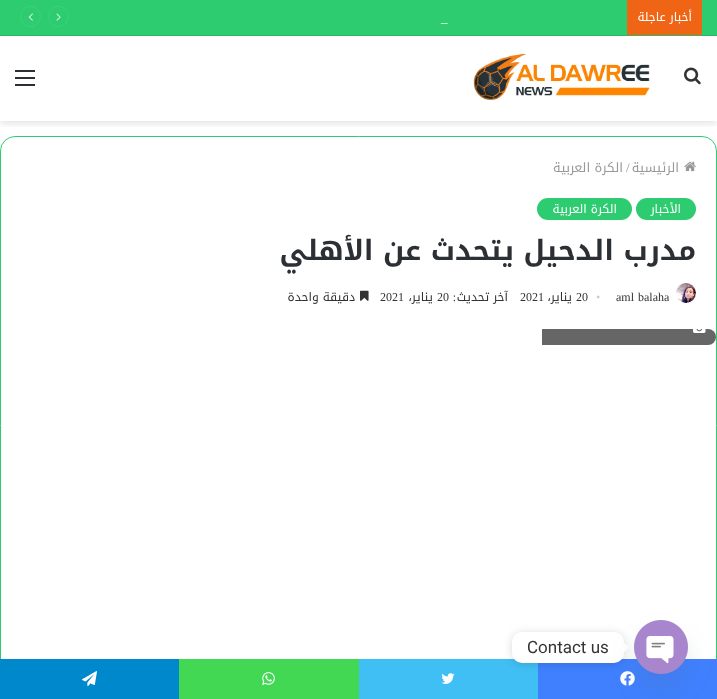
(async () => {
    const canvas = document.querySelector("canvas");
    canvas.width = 717;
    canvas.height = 699;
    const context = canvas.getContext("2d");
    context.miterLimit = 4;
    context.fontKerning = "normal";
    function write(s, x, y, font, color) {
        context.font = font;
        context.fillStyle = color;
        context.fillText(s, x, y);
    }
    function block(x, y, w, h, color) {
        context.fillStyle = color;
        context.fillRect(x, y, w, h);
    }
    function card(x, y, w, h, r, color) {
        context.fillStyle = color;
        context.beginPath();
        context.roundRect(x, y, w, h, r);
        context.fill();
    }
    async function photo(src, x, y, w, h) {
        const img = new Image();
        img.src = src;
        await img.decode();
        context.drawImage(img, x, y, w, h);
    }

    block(0, 0, 717, 699, "rgb(255, 255, 255)");
    context.save();
    context.beginPath();
    context.rect(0, 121, 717, 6);
    context.clip();
    context.fillStyle = "rgba(0, 0, 0, 0.1)";
    context.filter = "blur(3.5px)";
    context.beginPath();
    context.rect(0, 39, 717, 85);
    context.fill();
    context.filter = "none";
    context.restore();
    block(0, 0, 717, 35, "rgb(46, 204, 113)");
    block(0, 35, 717, 1, "rgb(41, 184, 102)");
    block(627, 0, 75, 35, "rgb(239, 101, 21)");
    context.direction = "rtl";
    write("أخبار عاجلة", 692, 21, "12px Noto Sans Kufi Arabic", "rgb(255, 255, 255)");
    context.direction = "ltr";
    write("_", 441, 22, "13px Liberation Serif", "rgb(255, 255, 255)");
    context.beginPath();
    context.moveTo(58.5, 26.5);
    context.bezierCurveTo(45.5, 26.5, 45.5, 6.5, 58.5, 6.5);
    context.bezierCurveTo(71.5, 6.5, 71.5, 26.5, 58.5, 26.5);
    context.closePath();
    context.strokeStyle = "rgb(63, 208, 124)";
    context.stroke();
    await photo("media/1.png", 56, 13, 5, 8);
    context.beginPath();
    context.moveTo(30.5, 26.5);
    context.bezierCurveTo(17.5, 26.5, 17.5, 6.5, 30.5, 6.5);
    context.bezierCurveTo(43.5, 6.5, 43.5, 26.5, 30.5, 26.5);
    context.closePath();
    context.stroke();
    await photo("media/2.png", 28, 13, 5, 8);
    await photo("media/3.png", 684, 67, 17, 18);
    await photo("media/4.png", 473, 53, 177, 47);
    block(15, 77, 20, 2, "rgb(44, 47, 52)");
    block(15, 70, 20, 2, "rgb(44, 47, 52)");
    block(15, 84, 20, 2, "rgb(44, 47, 52)");
    context.beginPath();
    context.roundRect(0.5, 136.5, 716, 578, 14.5);
    context.strokeStyle = "rgb(46, 204, 113)";
    context.stroke();
    await photo("media/5.png", 684, 161, 12, 11);
    context.direction = "rtl";
    write("الرئيسية", 679, 172, "13px Noto Sans Kufi Arabic", "rgb(153, 153, 153)");
    context.direction = "ltr";
    write("/", 626, 172, "13px Liberation Serif", "rgb(153, 153, 153)");
    context.direction = "rtl";
    write("الكرة العربية", 623, 172, "13px Noto Sans Kufi Arabic", "rgb(153, 153, 153)");
    card(636, 198, 60, 22, 11, "rgb(46, 204, 113)");
    write("الأخبار", 681, 213, "12px Noto Sans Kufi Arabic", "rgb(255, 255, 255)");
    card(537, 198, 95, 22, 11, "rgb(46, 204, 113)");
    write("الكرة العربية", 617, 213, "12px Noto Sans Kufi Arabic", "rgb(255, 255, 255)");
    write("مدرب الدحيل يتحدث عن الأهلي", 696, 260, "bold 28px Noto Sans Kufi Arabic", "rgb(44, 47, 52)");
    await photo("media/6.png", 676, 283, 20, 20);
    context.wordSpacing = "1px";
    context.direction = "ltr";
    write("aml balaha", 616, 301, "12px Liberation Serif", "rgb(51, 51, 51)");
    context.wordSpacing = "0px";
    write("•", 596, 301, "12px Liberation Serif", "rgb(204, 204, 204)");
    write("20", 576, 301, "12px Liberation Serif", "rgb(51, 51, 51)");
    context.direction = "rtl";
    write("يناير،", 572, 301, "12px Noto Sans Kufi Arabic", "rgb(51, 51, 51)");
    context.direction = "ltr";
    write("2021", 520, 301, "12px Liberation Serif", "rgb(51, 51, 51)");
    context.direction = "rtl";
    write("آخر تحديث", 508, 301, "12px Noto Sans Kufi Arabic", "rgb(51, 51, 51)");
    write(":", 456, 301, "12px Liberation Serif", "rgb(51, 51, 51)");
    context.direction = "ltr";
    write("20", 437, 301, "12px Liberation Serif", "rgb(51, 51, 51)");
    context.direction = "rtl";
    write("يناير،", 433, 301, "12px Noto Sans Kufi Arabic", "rgb(51, 51, 51)");
    context.direction = "ltr";
    write("2021", 380, 301, "12px Liberation Serif", "rgb(51, 51, 51)");
    await photo("media/7.png", 360, 290, 9, 11);
    context.direction = "rtl";
    write("دقيقة واحدة", 355, 301, "12px Noto Sans Kufi Arabic", "rgb(51, 51, 51)");
    context.fillStyle = "rgb(102, 102, 102)";
    context.beginPath();
    context.roundRect(542, 329, 174, 16, [0, 8, 8, 0]);
    context.fill();
    await photo("media/8.png", 693, 329, 13, 4);
    block(538, 659, 179, 40, "rgb(64, 128, 255)");
    await photo("media/9.png", 620, 671, 15, 15);
    block(359, 659, 179, 40, "rgb(64, 191, 245)");
    await photo("media/10.png", 441, 673, 14, 11);
    block(179, 659, 180, 40, "rgb(67, 216, 84)");
    await photo("media/11.png", 262, 672, 13, 13);
    block(0, 659, 179, 40, "rgb(0, 136, 204)");
    await photo("media/12.png", 82, 671, 15, 15);
    context.fillStyle = "rgba(0, 0, 0, 0.15)";
    context.filter = "blur(4px)";
    context.beginPath();
    context.roundRect(512, 633, 112, 31, 10);
    context.fill();
    context.filter = "none";
    card(512, 632, 112, 31, 10, "rgb(255, 255, 255)");
    context.beginPath();
    context.moveTo(624, 652.5);
    context.lineTo(624, 642.5);
    context.lineTo(629, 647.5);
    context.closePath();
    context.fill();
    context.fillStyle = "rgba(73, 104, 126, 0.16)";
    context.filter = "blur(12px)";
    context.beginPath();
    context.roundRect(634, 636, 54, 54, 27);
    context.fill();
    context.filter = "none";
    await photo("media/13.png", 634, 620, 54, 54);
    context.direction = "ltr";
    write("Contact us", 527, 653, "17px Roboto", "rgb(51, 51, 51)");
})();
